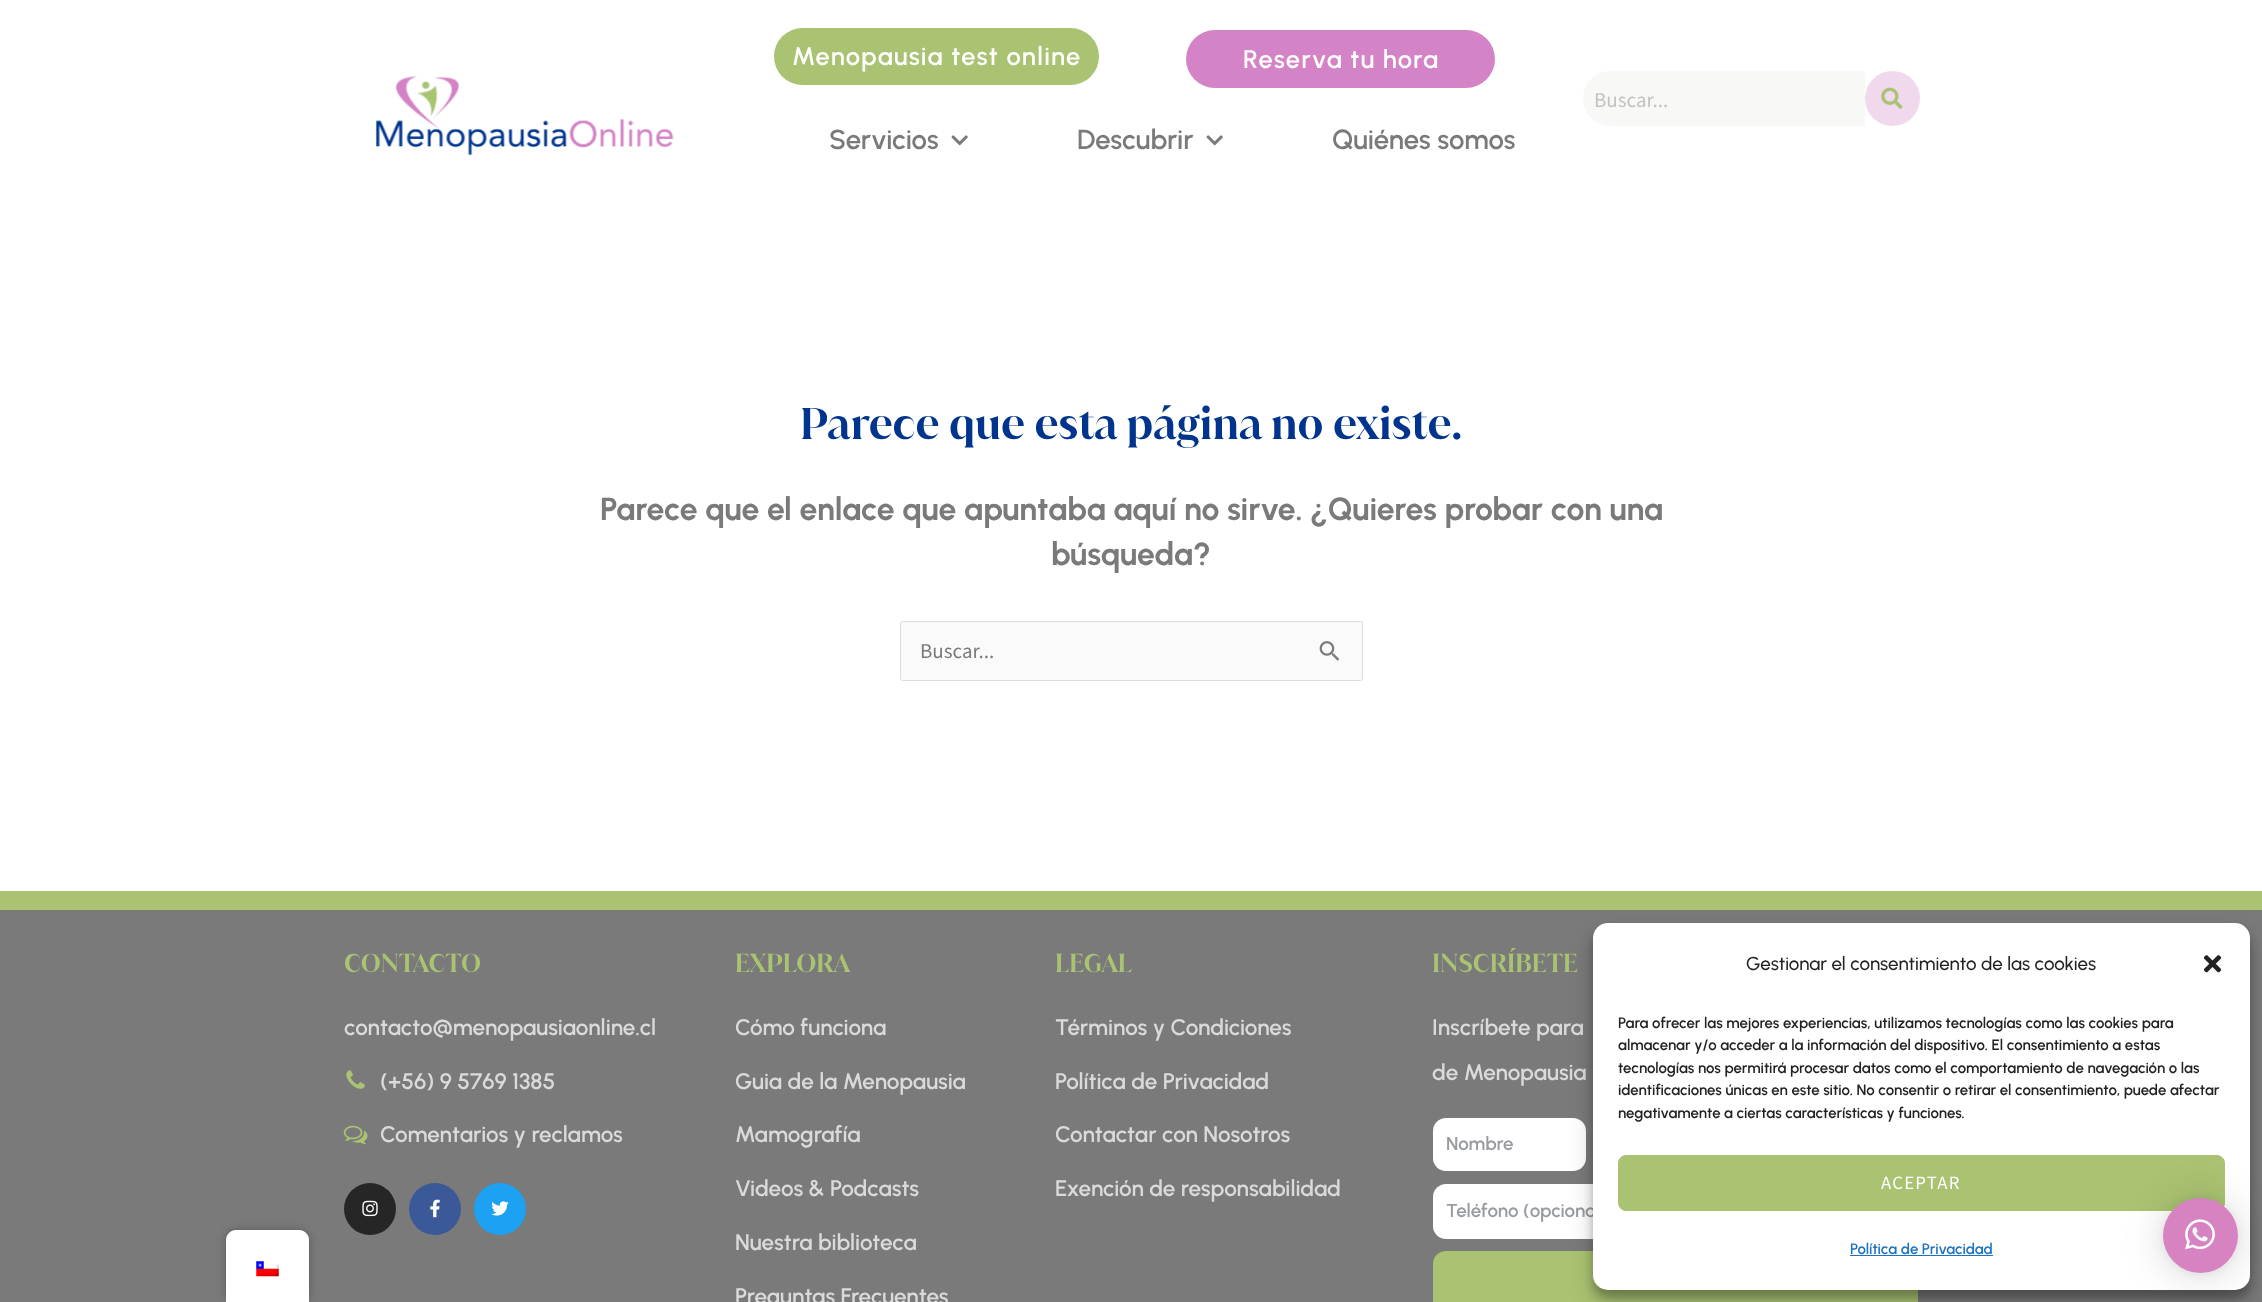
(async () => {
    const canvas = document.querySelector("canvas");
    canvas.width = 2262;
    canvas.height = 1302;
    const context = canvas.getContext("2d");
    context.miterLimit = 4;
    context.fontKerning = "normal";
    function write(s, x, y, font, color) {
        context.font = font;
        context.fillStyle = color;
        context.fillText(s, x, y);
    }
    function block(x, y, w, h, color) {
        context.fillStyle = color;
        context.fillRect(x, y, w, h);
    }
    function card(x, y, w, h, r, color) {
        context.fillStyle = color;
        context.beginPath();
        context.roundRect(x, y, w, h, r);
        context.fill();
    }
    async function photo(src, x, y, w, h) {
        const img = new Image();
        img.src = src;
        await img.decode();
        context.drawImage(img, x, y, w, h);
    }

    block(0, 0, 2262, 1302, "rgb(255, 255, 255)");
    await photo("media/1.png", 375, 76, 299, 79);
    card(774, 28, 325, 57, 28.5, "rgb(169, 195, 114)");
    context.letterSpacing = "1.25px";
    write("Menopausia test online", 792, 65, "600 25.5px Urbanist", "rgb(255, 255, 255)");
    card(1186, 30, 309, 58, 29, "rgb(211, 131, 198)");
    write("Reserva tu hora", 1243, 68, "600 25.5px Urbanist", "rgb(255, 255, 255)");
    context.letterSpacing = "0px";
    write("Servicios", 829, 149, "600 27.5px Urbanist", "rgb(122, 122, 122)");
    await photo("media/2.png", 951, 135, 17, 11);
    write("Descubrir", 1077, 149, "600 27.5px Urbanist", "rgb(122, 122, 122)");
    await photo("media/2.png", 1206, 135, 17, 11);
    write("Quiénes somos", 1332, 149, "600 27.5px Urbanist", "rgb(122, 122, 122)");
    context.fillStyle = "rgb(248, 248, 247)";
    context.beginPath();
    context.roundRect(1583, 71, 282, 55, [27.5, 0, 0, 27.5]);
    context.fill();
    write("Buscar...", 1594, 107, "21px Source Sans Pro", "rgb(194, 194, 193)");
    context.fillStyle = "rgb(241, 217, 237)";
    context.beginPath();
    context.arc(1892.5, 98.5, 27.5, 0, Math.PI * 2);
    context.fill();
    await photo("media/3.png", 1881, 87, 22, 22);
    write("Parece que esta página no existe.", 800, 439, "600 42.5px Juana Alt", "rgb(0, 52, 141)");
    write("Parece que el enlace que apuntaba aquí no sirve. ¿Quieres probar con una", 600, 520, "bold 31.9px Urbanist", "rgb(122, 122, 122)");
    write("búsqueda?", 1051, 565, "bold 31.9px Urbanist", "rgb(122, 122, 122)");
    context.fillStyle = "rgb(250, 250, 250)";
    context.beginPath();
    context.roundRect(900.5, 621.5, 462, 59, 2);
    context.fill();
    context.strokeStyle = "rgb(221, 221, 221)";
    context.stroke();
    write("Buscar...", 920, 658, "21px Source Sans Pro", "rgb(122, 122, 122)");
    await photo("media/4.png", 1319, 641, 21, 20);
    block(0, 910, 2262, 392, "rgb(122, 122, 122)");
    block(0, 891, 2262, 19, "rgb(169, 195, 114)");
    write("CONTACTO", 344, 972, "600 25px Juana Alt", "rgb(169, 195, 114)");
    write("contacto@menopausiaonline.cl", 344, 1035, "600 22.5px Urbanist", "rgb(218, 218, 218)");
    await photo("media/5.png", 346, 1070, 19, 19);
    write("(+56) 9 5769 1385", 380, 1089, "600 22.5px Urbanist", "rgb(218, 218, 218)");
    await photo("media/6.png", 343, 1125, 25, 20);
    write("Comentarios y reclamos", 380, 1142, "600 22.5px Urbanist", "rgb(218, 218, 218)");
    context.fillStyle = "rgb(38, 38, 38)";
    context.beginPath();
    context.arc(370, 1209, 26, 0, Math.PI * 2);
    context.fill();
    await photo("media/7.png", 362, 1200, 16, 17);
    context.fillStyle = "rgb(59, 89, 152)";
    context.beginPath();
    context.arc(435, 1209, 26, 0, Math.PI * 2);
    context.fill();
    await photo("media/8.png", 430, 1199, 10, 19);
    context.fillStyle = "rgb(29, 161, 242)";
    context.beginPath();
    context.arc(500, 1209, 26, 0, Math.PI * 2);
    context.fill();
    await photo("media/9.png", 491, 1201, 18, 15);
    write("EXPLORA", 735, 972, "600 25px Juana Alt", "rgb(169, 195, 114)");
    write("Cómo funciona", 735, 1035, "600 22.5px Urbanist", "rgb(218, 218, 218)");
    write("Guia de la Menopausia", 735, 1089, "600 22.5px Urbanist", "rgb(218, 218, 218)");
    write("Mamografía", 735, 1142, "600 22.5px Urbanist", "rgb(218, 218, 218)");
    write("Videos & Podcasts", 735, 1196, "600 22.5px Urbanist", "rgb(218, 218, 218)");
    write("Nuestra biblioteca", 735, 1250, "600 22.5px Urbanist", "rgb(218, 218, 218)");
    write("Preguntas Frecuentes", 735, 1304, "600 22.5px Urbanist", "rgb(218, 218, 218)");
    write("LEGAL", 1055, 972, "600 25px Juana Alt", "rgb(169, 195, 114)");
    write("Términos y Condiciones", 1055, 1035, "600 22.5px Urbanist", "rgb(218, 218, 218)");
    write("Política de Privacidad", 1055, 1089, "600 22.5px Urbanist", "rgb(218, 218, 218)");
    write("Contactar con Nosotros", 1055, 1142, "600 22.5px Urbanist", "rgb(218, 218, 218)");
    write("Exención de responsabilidad", 1055, 1196, "600 22.5px Urbanist", "rgb(218, 218, 218)");
    write("INSCRÍBETE", 1432, 972, "600 25px Juana Alt", "rgb(169, 195, 114)");
    write("Inscríbete para", 1432, 1035, "600 22.5px Urbanist", "rgb(218, 218, 218)");
    write("de Menopausia", 1432, 1080, "600 22.5px Urbanist", "rgb(218, 218, 218)");
    card(1433, 1118, 153, 53, 13, "rgb(255, 255, 255)");
    write("Nombre", 1446, 1150, "600 18.75px Urbanist", "rgb(152, 155, 159)");
    card(1433, 1184, 485, 55, 13, "rgb(255, 255, 255)");
    write("Teléfono (opciona", 1446, 1217, "600 18.75px Urbanist", "rgb(152, 155, 159)");
    card(1433, 1251, 485, 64, 13, "rgb(169, 195, 114)");
    context.fillStyle = "rgba(0, 0, 0, 0.23)";
    context.filter = "blur(4px)";
    context.beginPath();
    context.roundRect(1593, 930, 657, 368, 15);
    context.fill();
    context.filter = "none";
    context.fillStyle = "rgba(0, 0, 0, 0.19)";
    context.filter = "blur(12.5px)";
    context.beginPath();
    context.roundRect(1593, 935, 657, 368, 15);
    context.fill();
    context.filter = "none";
    card(1593, 923, 657, 367, 15, "rgb(255, 255, 255)");
    write("Gestionar el consentimiento de las cookies", 1746, 970, "500 18.75px Urbanist", "rgb(34, 34, 34)");
    await photo("media/10.png", 2203, 955, 19, 18);
    write("Para ofrecer las mejores experiencias, utilizamos tecnologías como las cookies para", 1618, 1028, "600 15px Urbanist", "rgb(34, 34, 34)");
    write("almacenar y/o acceder a la información del dispositivo. El consentimiento a estas", 1618, 1050, "600 15px Urbanist", "rgb(34, 34, 34)");
    write("tecnologías nos permitirá procesar datos como el comportamiento de navegación o las", 1618, 1073, "600 15px Urbanist", "rgb(34, 34, 34)");
    write("identificaciones únicas en este sitio. No consentir o retirar el consentimiento, puede afectar", 1618, 1095, "600 15px Urbanist", "rgb(34, 34, 34)");
    write("negativamente a ciertas características y funciones.", 1618, 1118, "600 15px Urbanist", "rgb(34, 34, 34)");
    context.fillStyle = "rgb(169, 195, 114)";
    context.beginPath();
    context.roundRect(1618.5, 1155.5, 606, 55, 7.5);
    context.fill();
    context.strokeStyle = "rgb(169, 195, 114)";
    context.stroke();
    context.letterSpacing = "1.25px";
    write("ACEPTAR", 1881, 1189, "18.75px Source Sans Pro", "rgb(255, 255, 255)");
    context.letterSpacing = "0px";
    write("Política de Privacidad", 1850, 1254, "600 15px Urbanist", "rgb(30, 115, 190)");
    block(1850, 1255, 143, 1, "rgb(30, 115, 190)");
    context.fillStyle = "rgba(0, 0, 0, 0.25)";
    context.filter = "blur(5px)";
    context.beginPath();
    context.roundRect(226, 1230, 83, 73, 10);
    context.fill();
    context.filter = "none";
    context.fillStyle = "rgb(255, 255, 255)";
    context.beginPath();
    context.moveTo(236, 1230);
    context.lineTo(299, 1230);
    context.bezierCurveTo(304.5, 1230, 309, 1234.5, 309, 1240);
    context.lineTo(309, 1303);
    context.lineTo(226, 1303);
    context.lineTo(226, 1240);
    context.bezierCurveTo(226, 1234.5, 230.5, 1230, 236, 1230);
    context.closePath();
    context.fill();
    await photo("media/11.png", 256, 1261, 23, 16);
    context.fillStyle = "rgba(0, 0, 0, 0.16)";
    context.filter = "blur(20px)";
    context.beginPath();
    context.roundRect(2163, 1200, 75, 75, 37.5);
    context.fill();
    context.filter = "none";
    context.fillStyle = "rgba(0, 0, 0, 0.06)";
    context.filter = "blur(4px)";
    context.beginPath();
    context.roundRect(2163, 1199, 75, 75, 37.5);
    context.fill();
    context.filter = "none";
    context.fillStyle = "rgb(215, 131, 194)";
    context.beginPath();
    context.arc(2200.5, 1235.5, 37.5, 0, Math.PI * 2);
    context.fill();
    await photo("media/12.png", 2185, 1219, 30, 31);
})();
